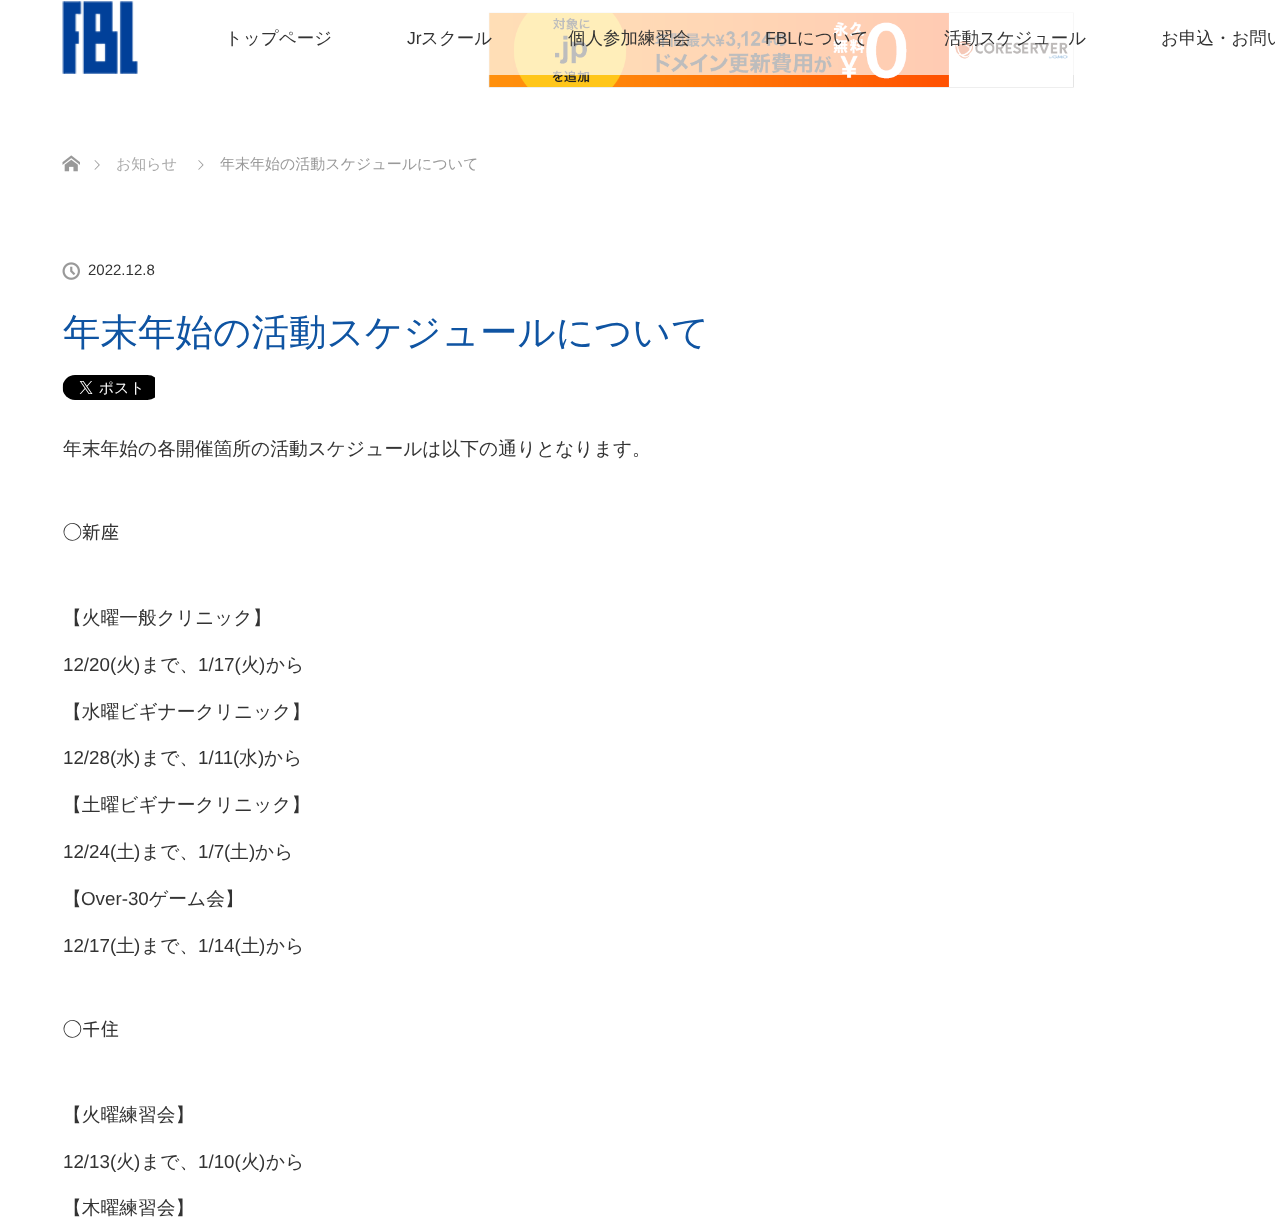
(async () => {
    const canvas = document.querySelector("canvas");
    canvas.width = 1275;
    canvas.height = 1225;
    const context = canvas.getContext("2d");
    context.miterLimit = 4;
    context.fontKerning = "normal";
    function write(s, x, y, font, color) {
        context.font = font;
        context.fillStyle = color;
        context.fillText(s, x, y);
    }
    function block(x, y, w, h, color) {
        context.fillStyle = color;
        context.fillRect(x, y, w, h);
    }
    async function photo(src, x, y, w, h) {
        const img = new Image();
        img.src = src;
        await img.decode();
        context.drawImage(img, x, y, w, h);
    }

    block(0, 0, 1275, 1225, "rgb(255, 255, 255)");
    await photo("media/1.png", 488, 12, 586, 76);
    block(488, 12, 586, 63, "rgba(255, 255, 255, 0.7)");
    await photo("media/2.png", 62, 1, 76, 73);
    write("トップページ", 225, 44, "500 17.5px WenQuanYi Zen Hei", "rgb(51, 51, 51)");
    write("Jr", 407, 44, "17.5px Liberation Sans", "rgb(51, 51, 51)");
    write("スクール", 421, 44, "500 17.5px WenQuanYi Zen Hei", "rgb(51, 51, 51)");
    write("個人参加練習会", 568, 44, "500 17.5px WenQuanYi Zen Hei", "rgb(51, 51, 51)");
    write("FBL", 765, 44, "17.5px Liberation Sans", "rgb(51, 51, 51)");
    write("について", 797, 44, "500 17.5px WenQuanYi Zen Hei", "rgb(51, 51, 51)");
    write("活動スケジュール", 944, 44, "500 17.5px WenQuanYi Zen Hei", "rgb(51, 51, 51)");
    write("お申込・お問い", 1161, 44, "500 17.5px WenQuanYi Zen Hei", "rgb(51, 51, 51)");
    await photo("media/3.png", 62, 155, 18, 17);
    await photo("media/4.png", 94, 160, 6, 10);
    write("お知らせ", 116, 169, "500 15px WenQuanYi Zen Hei", "rgb(170, 170, 170)");
    await photo("media/5.png", 198, 160, 6, 10);
    write("年末年始の活動スケジュールについて", 220, 169, "500 15px WenQuanYi Zen Hei", "rgb(153, 153, 153)");
    await photo("media/6.png", 62, 262, 18, 18);
    write("2022.12.8", 88, 275, "15px Liberation Sans", "rgb(51, 51, 51)");
    write("年末年始の活動スケジュールについて", 63, 345, "500 37.5px WenQuanYi Zen Hei", "rgb(15, 84, 162)");
    await photo("media/7.png", 62, 375, 93, 25);
    write("年末年始の各開催箇所の活動スケジュールは以下の通りとなります。", 63, 455, "500 18.75px WenQuanYi Zen Hei", "rgb(51, 51, 51)");
    write("◯新座", 63, 539, "18.75px IPAPGothic", "rgb(51, 51, 51)");
    write("【火曜一般クリニック】", 63, 624, "500 18.75px WenQuanYi Zen Hei", "rgb(51, 51, 51)");
    write("12/20(", 63, 671, "18.75px Liberation Sans", "rgb(51, 51, 51)");
    write("火", 116, 671, "500 18.75px WenQuanYi Zen Hei", "rgb(51, 51, 51)");
    write(")", 134, 671, "18.75px Liberation Sans", "rgb(51, 51, 51)");
    write("まで、", 141, 671, "500 18.75px WenQuanYi Zen Hei", "rgb(51, 51, 51)");
    write("1/17(", 198, 671, "18.75px Liberation Sans", "rgb(51, 51, 51)");
    write("火", 241, 671, "500 18.75px WenQuanYi Zen Hei", "rgb(51, 51, 51)");
    write(")", 259, 671, "18.75px Liberation Sans", "rgb(51, 51, 51)");
    write("から", 266, 671, "500 18.75px WenQuanYi Zen Hei", "rgb(51, 51, 51)");
    write("【水曜ビギナークリニック】", 63, 718, "500 18.75px WenQuanYi Zen Hei", "rgb(51, 51, 51)");
    write("12/28(", 63, 764, "18.75px Liberation Sans", "rgb(51, 51, 51)");
    write("水", 116, 764, "500 18.75px WenQuanYi Zen Hei", "rgb(51, 51, 51)");
    write(")", 134, 764, "18.75px Liberation Sans", "rgb(51, 51, 51)");
    write("まで、", 141, 764, "500 18.75px WenQuanYi Zen Hei", "rgb(51, 51, 51)");
    write("1/11(", 198, 764, "18.75px Liberation Sans", "rgb(51, 51, 51)");
    write("水", 239, 764, "500 18.75px WenQuanYi Zen Hei", "rgb(51, 51, 51)");
    write(")", 258, 764, "18.75px Liberation Sans", "rgb(51, 51, 51)");
    write("から", 264, 764, "500 18.75px WenQuanYi Zen Hei", "rgb(51, 51, 51)");
    write("【土曜ビギナークリニック】", 63, 811, "500 18.75px WenQuanYi Zen Hei", "rgb(51, 51, 51)");
    write("12/24(", 63, 858, "18.75px Liberation Sans", "rgb(51, 51, 51)");
    write("土", 116, 858, "500 18.75px WenQuanYi Zen Hei", "rgb(51, 51, 51)");
    write(")", 134, 858, "18.75px Liberation Sans", "rgb(51, 51, 51)");
    write("まで、", 141, 858, "500 18.75px WenQuanYi Zen Hei", "rgb(51, 51, 51)");
    write("1/7(", 198, 858, "18.75px Liberation Sans", "rgb(51, 51, 51)");
    write("土", 230, 858, "500 18.75px WenQuanYi Zen Hei", "rgb(51, 51, 51)");
    write(")", 249, 858, "18.75px Liberation Sans", "rgb(51, 51, 51)");
    write("から", 255, 858, "500 18.75px WenQuanYi Zen Hei", "rgb(51, 51, 51)");
    write("【", 63, 905, "500 18.75px WenQuanYi Zen Hei", "rgb(51, 51, 51)");
    write("Over-30", 81, 905, "18.75px Liberation Sans", "rgb(51, 51, 51)");
    write("ゲーム会】", 149, 905, "500 18.75px WenQuanYi Zen Hei", "rgb(51, 51, 51)");
    write("12/17(", 63, 952, "18.75px Liberation Sans", "rgb(51, 51, 51)");
    write("土", 116, 952, "500 18.75px WenQuanYi Zen Hei", "rgb(51, 51, 51)");
    write(")", 134, 952, "18.75px Liberation Sans", "rgb(51, 51, 51)");
    write("まで、", 141, 952, "500 18.75px WenQuanYi Zen Hei", "rgb(51, 51, 51)");
    write("1/14(", 198, 952, "18.75px Liberation Sans", "rgb(51, 51, 51)");
    write("土", 241, 952, "500 18.75px WenQuanYi Zen Hei", "rgb(51, 51, 51)");
    write(")", 259, 952, "18.75px Liberation Sans", "rgb(51, 51, 51)");
    write("から", 266, 952, "500 18.75px WenQuanYi Zen Hei", "rgb(51, 51, 51)");
    write("◯千住", 63, 1036, "18.75px IPAPGothic", "rgb(51, 51, 51)");
    write("【火曜練習会】", 63, 1121, "500 18.75px WenQuanYi Zen Hei", "rgb(51, 51, 51)");
    write("12/13(", 63, 1168, "18.75px Liberation Sans", "rgb(51, 51, 51)");
    write("火", 116, 1168, "500 18.75px WenQuanYi Zen Hei", "rgb(51, 51, 51)");
    write(")", 134, 1168, "18.75px Liberation Sans", "rgb(51, 51, 51)");
    write("まで、", 141, 1168, "500 18.75px WenQuanYi Zen Hei", "rgb(51, 51, 51)");
    write("1/10(", 198, 1168, "18.75px Liberation Sans", "rgb(51, 51, 51)");
    write("火", 241, 1168, "500 18.75px WenQuanYi Zen Hei", "rgb(51, 51, 51)");
    write(")", 259, 1168, "18.75px Liberation Sans", "rgb(51, 51, 51)");
    write("から", 266, 1168, "500 18.75px WenQuanYi Zen Hei", "rgb(51, 51, 51)");
    write("【木曜練習会】", 63, 1214, "500 18.75px WenQuanYi Zen Hei", "rgb(51, 51, 51)");
})();
